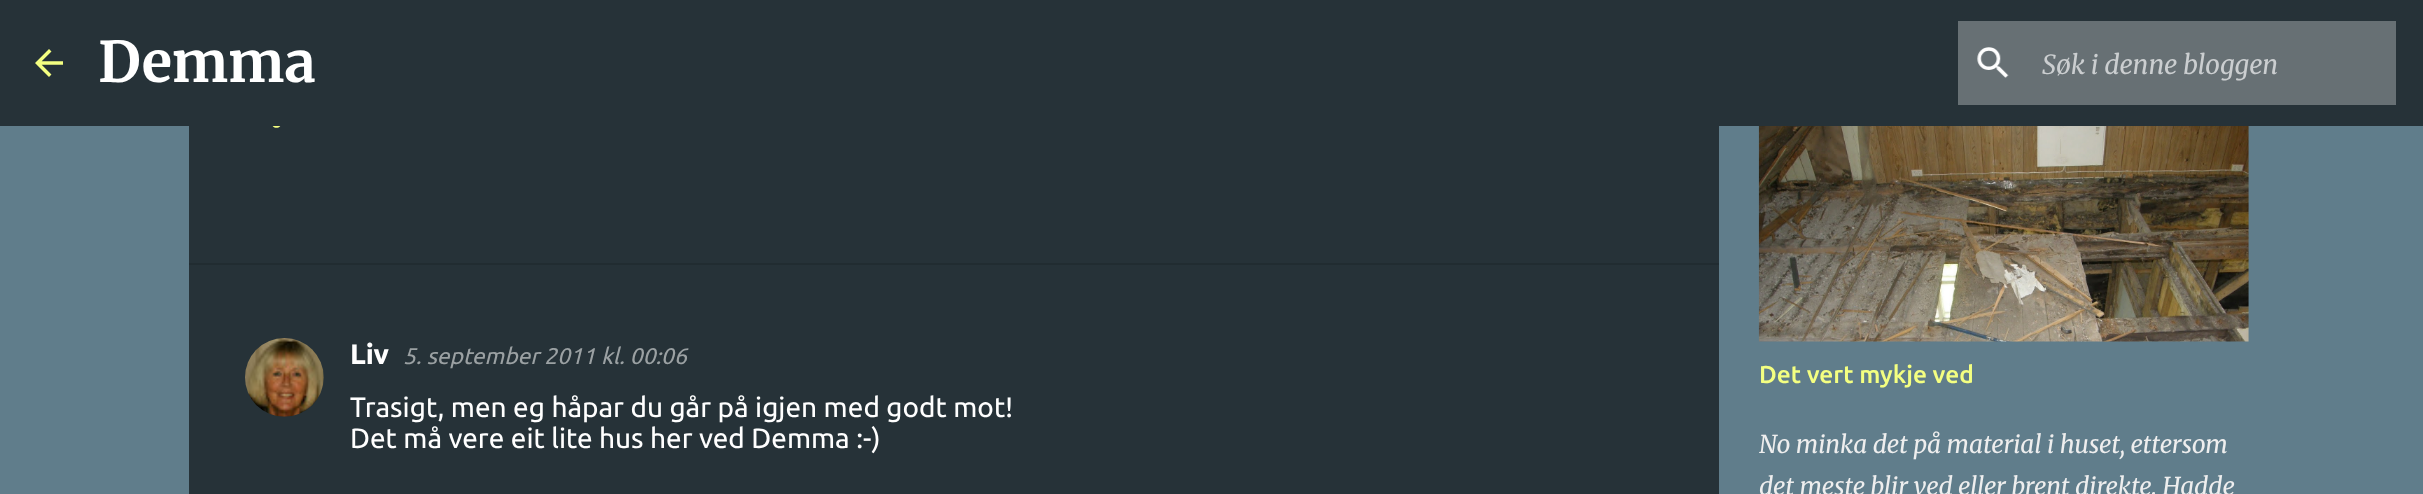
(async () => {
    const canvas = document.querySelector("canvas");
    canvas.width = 2423;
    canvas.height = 494;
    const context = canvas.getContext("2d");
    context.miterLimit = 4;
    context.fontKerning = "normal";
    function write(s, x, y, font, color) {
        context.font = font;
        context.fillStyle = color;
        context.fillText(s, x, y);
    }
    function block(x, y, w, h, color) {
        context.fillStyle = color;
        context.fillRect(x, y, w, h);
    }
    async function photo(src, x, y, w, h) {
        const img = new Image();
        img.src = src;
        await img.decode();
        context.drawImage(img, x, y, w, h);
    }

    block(0, 0, 2423, 494, "rgb(96, 125, 139)");
    block(0, 0, 2423, 126, "rgb(38, 50, 56)");
    await photo("media/1.png", 35, 49, 28, 28);
    write("Demma", 98, 82, "bold 56px Merriweather", "rgb(255, 255, 255)");
    block(1958, 21, 438, 84, "rgb(103, 112, 116)");
    await photo("media/2.png", 1977, 47, 32, 31);
    write("Søk i denne bloggen", 2042, 74, "italic 26.25px Merriweather", "rgb(203, 206, 208)");
    block(189, 126, 1530, 137, "rgb(38, 50, 56)");
    await photo("media/3.png", 272, 126, 9, 2);
    block(189, 265, 1530, 229, "rgb(38, 50, 56)");
    block(189, 263, 1530, 2, "rgb(33, 44, 49)");
    await photo("media/4.png", 245, 338, 79, 79);
    write("Liv", 350, 364, "bold 28px Ubuntu", "rgb(255, 255, 255)");
    write("5. september 2011 kl. 00:06", 403, 364, "italic 22.75px Ubuntu", "rgb(155, 161, 163)");
    write("Trasigt, men eg håpar du går på igjen med godt mot!", 350, 417, "28px Ubuntu", "rgb(255, 255, 255)");
    write("Det må vere eit lite hus her ved Demma :-)", 350, 448, "28px Ubuntu", "rgb(255, 255, 255)");
    await photo("media/5.png", 1758, 126, 491, 216);
    write("Det vert mykje ved", 1759, 383, "500 24.5px Ubuntu", "rgb(244, 255, 129)");
    write("No minka det på material i huset, ettersom", 1759, 453, "italic 24.5px Merriweather", "rgb(238, 238, 238)");
    write("det meste blir ved eller brent direkte. Hadde", 1759, 495, "italic 24.5px Merriweather", "rgb(238, 238, 238)");
})();
